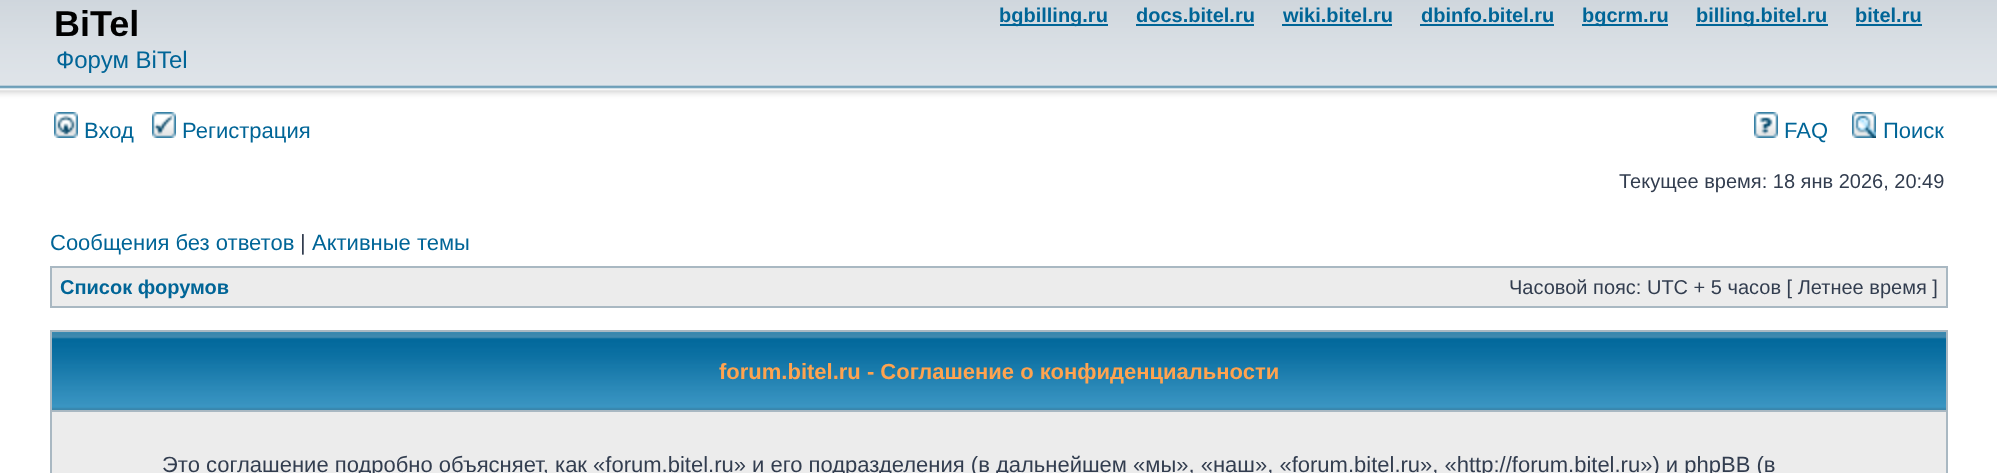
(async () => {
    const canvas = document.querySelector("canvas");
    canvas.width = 1997;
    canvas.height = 473;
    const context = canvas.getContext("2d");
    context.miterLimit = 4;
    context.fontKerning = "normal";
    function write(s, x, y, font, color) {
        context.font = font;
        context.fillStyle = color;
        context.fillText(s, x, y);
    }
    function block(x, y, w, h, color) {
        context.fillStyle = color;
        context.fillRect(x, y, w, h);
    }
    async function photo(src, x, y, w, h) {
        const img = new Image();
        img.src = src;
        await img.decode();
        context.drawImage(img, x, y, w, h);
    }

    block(0, 0, 1997, 473, "rgb(255, 255, 255)");
    await photo("media/1.png", 0, 0, 1997, 108);
    write("BiTel", 54, 36, "bold 36px Liberation Sans", "rgb(0, 0, 0)");
    write("Форум BiTel", 56, 68, "24px Liberation Sans", "rgb(0, 101, 151)");
    block(1000, 24, 108, 2, "rgb(0, 101, 151)");
    write("bgbilling.ru", 999, 22, "bold 20px Liberation Sans", "rgb(0, 101, 151)");
    write("docs.bitel.ru", 1136, 22, "bold 20px Liberation Sans", "rgb(0, 101, 151)");
    block(1136, 24, 118, 2, "rgb(0, 101, 151)");
    write("wiki.bitel.ru", 1283, 22, "bold 20px Liberation Sans", "rgb(0, 101, 151)");
    block(1282, 24, 110, 2, "rgb(0, 101, 151)");
    write("dbinfo.bitel.ru", 1421, 22, "bold 20px Liberation Sans", "rgb(0, 101, 151)");
    block(1420, 24, 134, 2, "rgb(0, 101, 151)");
    block(1582, 24, 86, 2, "rgb(0, 101, 151)");
    write("bgcrm.ru", 1582, 22, "bold 20px Liberation Sans", "rgb(0, 101, 151)");
    block(1696, 24, 132, 2, "rgb(0, 101, 151)");
    write("billing.bitel.ru", 1696, 22, "bold 20px Liberation Sans", "rgb(0, 101, 151)");
    write("bitel.ru", 1855, 22, "bold 20px Liberation Sans", "rgb(0, 101, 151)");
    block(1856, 24, 66, 2, "rgb(0, 101, 151)");
    await photo("media/2.png", 54, 112, 24, 26);
    write("Вход", 84, 138, "22px Liberation Sans", "rgb(0, 101, 151)");
    await photo("media/3.png", 152, 112, 24, 26);
    write("Регистрация", 182, 138, "22px Liberation Sans", "rgb(0, 101, 151)");
    await photo("media/4.png", 1754, 112, 24, 26);
    write("FAQ", 1784, 138, "22px Liberation Sans", "rgb(0, 101, 151)");
    await photo("media/5.png", 1852, 112, 24, 26);
    write("Поиск", 1883, 138, "22px Liberation Sans", "rgb(0, 101, 151)");
    write("Текущее время: 18 янв 2026, 20:49", 1619, 188, "20px Liberation Sans", "rgb(50, 61, 79)");
    write("Сообщения без ответов", 50, 250, "22px Liberation Sans", "rgb(0, 101, 151)");
    write("|", 300, 250, "22px Liberation Sans", "rgb(50, 61, 79)");
    write("Активные темы", 312, 250, "22px Liberation Sans", "rgb(0, 101, 151)");
    block(50, 266, 1898, 42, "rgb(169, 184, 194)");
    block(52, 268, 1894, 38, "rgb(236, 236, 236)");
    write("Список форумов", 60, 294, "bold 20px Liberation Sans", "rgb(0, 101, 151)");
    write("Часовой пояс: UTC + 5 часов [ Летнее время ]", 1509, 294, "20px Liberation Sans", "rgb(50, 61, 79)");
    block(50, 330, 1898, 143, "rgb(169, 184, 194)");
    await photo("media/6.png", 52, 332, 1894, 78);
    write("forum.bitel.ru - Соглашение о конфиденциальности", 719, 379, "bold 22px Liberation Sans", "rgb(255, 163, 79)");
    block(52, 412, 1894, 61, "rgb(236, 236, 236)");
    write("Это соглашение подробно объясняет, как «forum.bitel.ru» и его подразделения (в дальнейшем «мы», «наш», «forum.bitel.ru», «http://forum.bitel.ru») и phpBB (в", 162, 472, "22px Liberation Sans", "rgb(50, 61, 79)");
})();
